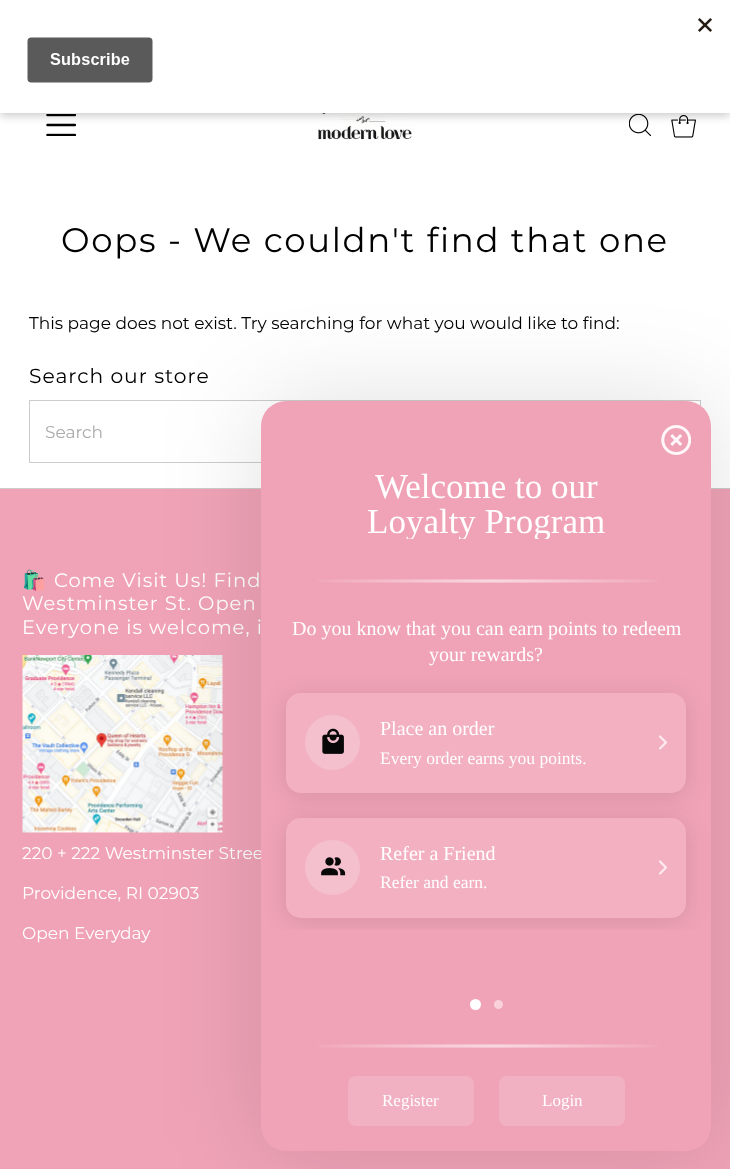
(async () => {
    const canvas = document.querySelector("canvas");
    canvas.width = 730;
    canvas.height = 1169;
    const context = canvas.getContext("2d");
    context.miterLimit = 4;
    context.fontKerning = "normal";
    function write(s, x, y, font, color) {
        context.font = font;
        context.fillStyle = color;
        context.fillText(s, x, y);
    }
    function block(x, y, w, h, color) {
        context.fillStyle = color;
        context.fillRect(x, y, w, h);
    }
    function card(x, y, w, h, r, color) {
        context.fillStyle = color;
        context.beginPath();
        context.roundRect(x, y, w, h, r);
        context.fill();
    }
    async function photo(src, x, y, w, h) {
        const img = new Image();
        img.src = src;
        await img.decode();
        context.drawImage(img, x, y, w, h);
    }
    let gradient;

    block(0, 0, 730, 1169, "rgb(255, 255, 255)");
    await photo("media/2.png", 46, 114, 30, 22);
    await photo("media/3.png", 318, 113, 94, 27);
    await photo("media/4.png", 629, 114, 22, 22);
    await photo("media/5.png", 671, 115, 25, 23);
    context.fillStyle = "rgba(0, 0, 0, 0.2)";
    context.filter = "blur(4px)";
    context.beginPath();
    context.rect(0, 4, 730, 112);
    context.fill();
    context.filter = "none";
    block(0, 0, 730, 113, "rgb(255, 255, 255)");
    await photo("media/1.png", 27, 18, 685, 65);
    context.letterSpacing = "1.7px";
    write("Oops - We couldn't find that one", 61, 252, "34px Montserrat", "rgb(0, 0, 0)");
    context.letterSpacing = "0px";
    write("This page does not exist. Try searching for what you would like to find:", 29, 329, "17px Montserrat", "rgb(0, 0, 0)");
    context.letterSpacing = "1px";
    write("Search our store", 29, 383, "20.25px Montserrat", "rgb(0, 0, 0)");
    context.strokeStyle = "rgb(204, 204, 204)";
    context.strokeRect(29.5, 400.5, 671, 62);
    context.letterSpacing = "0px";
    write("Search", 45, 438, "17px Montserrat", "rgb(170, 170, 170)");
    block(0, 489, 730, 680, "rgb(240, 163, 183)");
    block(0, 488, 730, 1, "rgb(204, 204, 204)");
    context.letterSpacing = "1px";
    write("🛍️", 22, 587, "19.5px Noto Color Emoji", "rgb(255, 255, 255)");
    write("Come Visit Us! Find", 54, 587, "19.5px Montserrat", "rgb(255, 255, 255)");
    write("Westminster St. Open", 22, 610, "19.5px Montserrat", "rgb(255, 255, 255)");
    write("Everyone is welcome, i", 22, 634, "19.5px Montserrat", "rgb(255, 255, 255)");
    await photo("media/6.png", 22, 655, 201, 178);
    context.letterSpacing = "0px";
    write("220 + 222 Westminster Stree", 22, 859, "17px Montserrat", "rgb(255, 255, 255)");
    write("Providence, RI 02903", 22, 899, "17px Montserrat", "rgb(255, 255, 255)");
    write("Open Everyday", 22, 939, "17px Montserrat", "rgb(255, 255, 255)");
    context.fillStyle = "rgba(0, 0, 0, 0.12)";
    context.filter = "blur(50px)";
    context.beginPath();
    context.roundRect(261, 401, 450, 750, 25);
    context.fill();
    context.filter = "none";
    card(261, 401, 450, 750, 25, "rgb(240, 163, 183)");
    await photo("media/7.png", 661, 425, 30, 30);
    write("Welcome to our", 375, 498, "35px Liberation Serif", "rgb(255, 255, 255)");
    context.save();
    context.beginPath();
    context.rect(324, 401, 325, 138);
    context.clip();
    write("Loyalty Program", 367, 533, "35px Liberation Serif", "rgb(255, 255, 255)");
    context.restore();
    gradient = context.createLinearGradient(305, 581, 669, 581);
    gradient.addColorStop(0, "rgb(240, 163, 183)");
    gradient.addColorStop(0.52, "rgb(245, 195, 208)");
    gradient.addColorStop(1, "rgb(240, 163, 183)");
    context.fillStyle = gradient;
    context.fillRect(320, 580, 335, 3);
    gradient = context.createLinearGradient(305, 581, 669, 581);
    gradient.addColorStop(0, "rgba(255, 255, 255, 0)");
    gradient.addColorStop(0.52, "rgba(255, 255, 255, 0.35)");
    gradient.addColorStop(1, "rgba(255, 255, 255, 0)");
    context.fillStyle = gradient;
    context.fillRect(317, 579, 341, 3);
    write("Do you know that you can earn points to redeem", 292, 635, "20px Liberation Serif", "rgb(255, 255, 255)");
    write("your rewards?", 429, 661, "20px Liberation Serif", "rgb(255, 255, 255)");
    context.save();
    context.beginPath();
    context.moveTo(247, 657);
    context.lineTo(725, 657);
    context.lineTo(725, 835);
    context.lineTo(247, 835);
    context.closePath();
    context.moveTo(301, 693);
    context.lineTo(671, 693);
    context.bezierCurveTo(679.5, 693, 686, 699.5, 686, 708);
    context.lineTo(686, 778);
    context.bezierCurveTo(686, 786.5, 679.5, 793, 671, 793);
    context.lineTo(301, 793);
    context.bezierCurveTo(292.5, 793, 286, 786.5, 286, 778);
    context.lineTo(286, 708);
    context.bezierCurveTo(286, 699.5, 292.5, 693, 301, 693);
    context.closePath();
    context.clip("evenodd");
    context.fillStyle = "rgba(0, 0, 0, 0.1)";
    context.filter = "blur(12.5px)";
    context.beginPath();
    context.roundRect(286, 696, 400, 100, 15);
    context.fill();
    context.filter = "none";
    context.restore();
    card(286, 693, 400, 100, 15, "rgba(255, 255, 255, 0.15)");
    context.fillStyle = "rgb(245, 192, 206)";
    context.beginPath();
    context.arc(332.5, 742.5, 27.5, 0, Math.PI * 2);
    context.fill();
    await photo("media/8.png", 322, 728, 22, 26);
    write("Place an order", 380, 735, "20px Liberation Serif", "rgb(255, 255, 255)");
    write("Every order earns you points.", 380, 764, "17.5px Liberation Serif", "rgb(255, 255, 255)");
    context.beginPath();
    context.moveTo(660, 736.5);
    context.lineTo(666, 742.5);
    context.lineTo(660, 748.5);
    context.strokeStyle = "rgb(252, 235, 240)";
    context.lineWidth = 2.2;
    context.lineCap = "round";
    context.lineJoin = "round";
    context.stroke();
    context.save();
    context.beginPath();
    context.rect(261, 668, 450, 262);
    context.clip();
    context.beginPath();
    context.moveTo(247, 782);
    context.lineTo(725, 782);
    context.lineTo(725, 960);
    context.lineTo(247, 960);
    context.closePath();
    context.moveTo(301, 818);
    context.lineTo(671, 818);
    context.bezierCurveTo(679.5, 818, 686, 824.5, 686, 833);
    context.lineTo(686, 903);
    context.bezierCurveTo(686, 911.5, 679.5, 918, 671, 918);
    context.lineTo(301, 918);
    context.bezierCurveTo(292.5, 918, 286, 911.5, 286, 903);
    context.lineTo(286, 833);
    context.bezierCurveTo(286, 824.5, 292.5, 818, 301, 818);
    context.closePath();
    context.clip("evenodd");
    context.fillStyle = "rgba(0, 0, 0, 0.1)";
    context.filter = "blur(12.5px)";
    context.beginPath();
    context.roundRect(286, 821, 400, 100, 15);
    context.fill();
    context.filter = "none";
    context.restore();
    card(286, 818, 400, 100, 15, "rgba(255, 255, 255, 0.15)");
    context.fillStyle = "rgb(245, 192, 206)";
    context.beginPath();
    context.arc(332.5, 867.5, 27.5, 0, Math.PI * 2);
    context.fill();
    await photo("media/9.png", 321, 857, 25, 19);
    write("Refer a Friend", 380, 860, "20px Liberation Serif", "rgb(255, 255, 255)");
    write("Refer and earn.", 380, 888, "17.5px Liberation Serif", "rgb(255, 255, 255)");
    context.beginPath();
    context.moveTo(660, 861.5);
    context.lineTo(666, 867.5);
    context.lineTo(660, 873.5);
    context.stroke();
    context.beginPath();
    context.arc(475.5, 1004.5, 5.5, 0, Math.PI * 2);
    context.fill();
    context.fillStyle = "rgb(248, 209, 219)";
    context.beginPath();
    context.arc(498.5, 1004.5, 4.5, 0, Math.PI * 2);
    context.fill();
    gradient = context.createLinearGradient(305, 1046, 669, 1046);
    gradient.addColorStop(0, "rgb(240, 163, 183)");
    gradient.addColorStop(0.52, "rgb(245, 195, 208)");
    gradient.addColorStop(1, "rgb(240, 163, 183)");
    context.fillStyle = gradient;
    context.fillRect(320, 1045, 335, 3);
    gradient = context.createLinearGradient(305, 1046, 669, 1046);
    gradient.addColorStop(0, "rgba(255, 255, 255, 0)");
    gradient.addColorStop(0.52, "rgba(255, 255, 255, 0.35)");
    gradient.addColorStop(1, "rgba(255, 255, 255, 0)");
    context.fillStyle = gradient;
    context.fillRect(317, 1044, 341, 3);
    card(348, 1076, 126, 50, 8, "rgb(242, 177, 194)");
    write("Register", 382, 1106, "17px Liberation Serif", "rgb(255, 255, 255)");
    card(499, 1076, 126, 50, 8, "rgb(242, 177, 194)");
    write("Login", 542, 1106, "17px Liberation Serif", "rgb(255, 255, 255)");
})();
